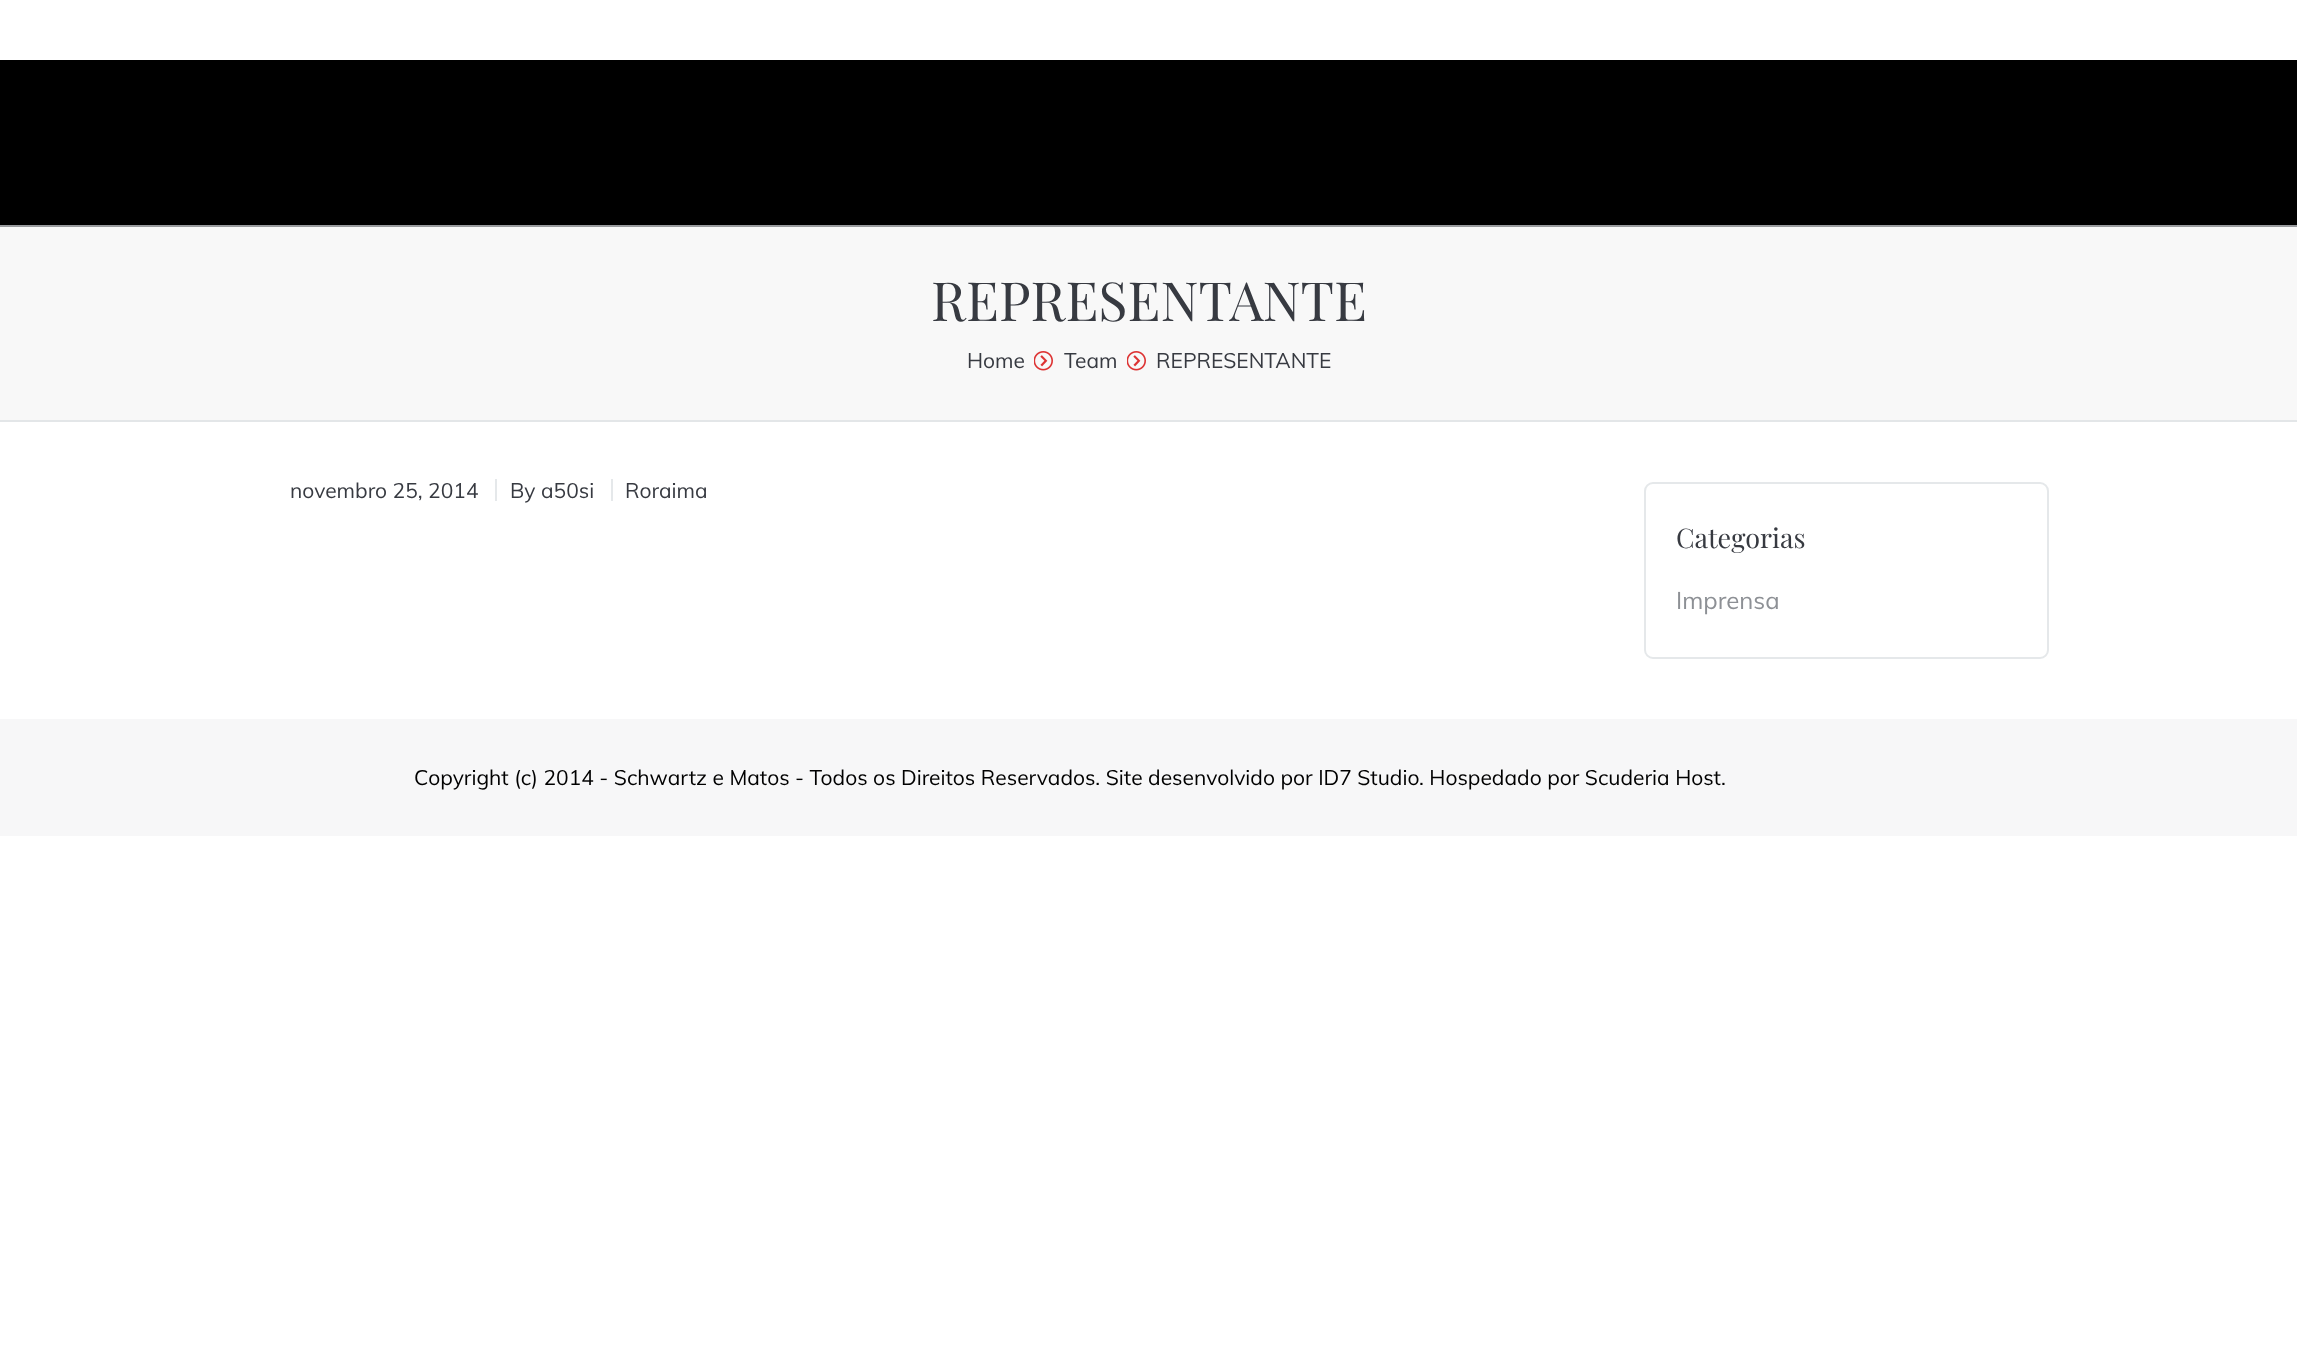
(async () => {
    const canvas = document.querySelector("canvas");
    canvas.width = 2297;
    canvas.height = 1359;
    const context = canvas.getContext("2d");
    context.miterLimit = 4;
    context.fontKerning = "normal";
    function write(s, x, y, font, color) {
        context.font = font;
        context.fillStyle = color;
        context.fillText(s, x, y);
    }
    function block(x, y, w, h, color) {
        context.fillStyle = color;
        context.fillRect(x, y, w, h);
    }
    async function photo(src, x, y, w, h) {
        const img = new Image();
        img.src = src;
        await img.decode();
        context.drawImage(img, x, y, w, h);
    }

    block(0, 0, 2297, 1359, "rgb(255, 255, 255)");
    block(0, 60, 2297, 165, "rgb(0, 0, 0)");
    block(0, 225, 2297, 2, "rgb(153, 155, 158)");
    block(0, 227, 2297, 193, "rgb(248, 248, 248)");
    write("REPRESENTANTE", 931, 321, "54px Playfair Display", "rgb(55, 58, 65)");
    write("Home", 967, 368, "21px Muli", "rgb(55, 58, 65)");
    await photo("media/1.png", 1034, 351, 19, 20);
    write("Team", 1064, 368, "21px Muli", "rgb(55, 58, 65)");
    await photo("media/1.png", 1127, 351, 19, 20);
    write("REPRESENTANTE", 1156, 368, "21px Muli", "rgb(55, 58, 65)");
    block(0, 420, 2297, 2, "rgb(227, 230, 232)");
    write("novembro 25, 2014", 290, 498, "21px Muli", "rgb(55, 58, 65)");
    block(495, 479, 2, 22, "rgb(229, 232, 234)");
    write("By a50si", 510, 498, "21px Muli", "rgb(55, 58, 65)");
    block(611, 479, 2, 22, "rgb(229, 232, 234)");
    write("Roraima", 625, 498, "21px Muli", "rgb(55, 58, 65)");
    context.beginPath();
    context.roundRect(1645, 483, 403, 175, 8);
    context.strokeStyle = "rgb(229, 232, 234)";
    context.lineWidth = 2;
    context.stroke();
    write("Categorias", 1676, 548, "27px Playfair Display", "rgb(55, 58, 65)");
    write("Imprensa", 1676, 609, "24px Muli", "rgb(141, 144, 149)");
    block(0, 719, 2297, 117, "rgb(247, 247, 248)");
    write("Copyright (c) 2014 - Schwartz e Matos - Todos os Direitos Reservados. Site desenvolvido por ID7 Studio", 414, 785, "21px Muli", "rgb(0, 0, 0)");
    write(". Hospedado por Scuderia Host", 1419, 785, "21px Muli", "rgb(0, 0, 0)");
    write(".", 1721, 785, "21px Muli", "rgb(0, 0, 0)");
})();
